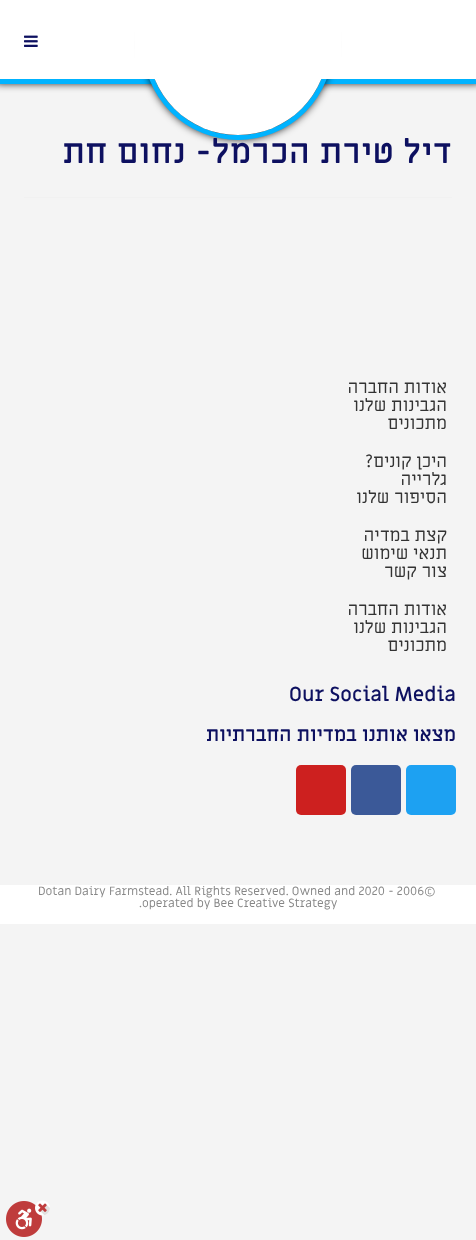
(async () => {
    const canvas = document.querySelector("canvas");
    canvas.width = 476;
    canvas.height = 1240;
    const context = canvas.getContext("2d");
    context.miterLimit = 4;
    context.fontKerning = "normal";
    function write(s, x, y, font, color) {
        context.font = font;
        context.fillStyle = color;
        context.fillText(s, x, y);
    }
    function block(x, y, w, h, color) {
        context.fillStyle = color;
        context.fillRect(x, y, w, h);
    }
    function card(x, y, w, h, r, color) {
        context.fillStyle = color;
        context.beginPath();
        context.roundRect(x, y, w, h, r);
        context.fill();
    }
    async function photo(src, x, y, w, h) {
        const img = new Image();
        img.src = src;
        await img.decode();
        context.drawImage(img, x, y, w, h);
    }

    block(0, 0, 476, 1240, "rgb(244, 244, 244)");
    context.fillStyle = "rgb(0, 0, 0)";
    context.filter = "blur(4px)";
    context.beginPath();
    context.rect(-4, -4, 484, 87);
    context.fill();
    context.filter = "none";
    context.strokeStyle = "rgb(0, 179, 255)";
    context.lineWidth = 5;
    context.strokeRect(-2.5, -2.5, 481, 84);
    block(0, 0, 476, 79, "rgb(255, 255, 255)");
    context.fillStyle = "rgb(0, 0, 0)";
    context.filter = "blur(4px)";
    context.beginPath();
    context.roundRect(144, -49, 188, 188, 94);
    context.fill();
    context.filter = "none";
    context.letterSpacing = "0.6px";
    context.direction = "rtl";
    write("דיל טירת הכרמל- נחום חת", 452, 163, "600 34px Miriam Libre", "rgb(13, 16, 96)");
    context.beginPath();
    context.arc(238, 45, 92.5, 0, Math.PI * 2);
    context.stroke();
    context.fillStyle = "rgb(255, 255, 255)";
    context.beginPath();
    context.arc(238, 45, 90, 0, Math.PI * 2);
    context.fill();
    block(135, 0, 206, 79, "rgb(255, 255, 255)");
    await photo("media/1.png", 24, 35, 14, 12);
    block(24, 197, 428, 1, "rgb(241, 241, 241)");
    context.letterSpacing = "0px";
    write("אודות החברה", 447, 393, "18px Miriam Libre", "rgb(51, 51, 51)");
    write("הגבינות שלנו", 447, 411, "18px Miriam Libre", "rgb(51, 51, 51)");
    write("מתכונים", 447, 429, "18px Miriam Libre", "rgb(51, 51, 51)");
    write("היכן קונים?", 447, 467, "18px Miriam Libre", "rgb(51, 51, 51)");
    write("גלרייה", 447, 485, "18px Miriam Libre", "rgb(51, 51, 51)");
    write("הסיפור שלנו", 447, 503, "18px Miriam Libre", "rgb(51, 51, 51)");
    write("קצת במדיה", 447, 541, "18px Miriam Libre", "rgb(51, 51, 51)");
    write("תנאי שימוש", 447, 559, "18px Miriam Libre", "rgb(51, 51, 51)");
    write("צור קשר", 447, 577, "18px Miriam Libre", "rgb(51, 51, 51)");
    write("אודות החברה", 447, 615, "18px Miriam Libre", "rgb(51, 51, 51)");
    write("הגבינות שלנו", 447, 633, "18px Miriam Libre", "rgb(51, 51, 51)");
    write("מתכונים", 447, 651, "18px Miriam Libre", "rgb(51, 51, 51)");
    context.direction = "ltr";
    write("Our Social Media", 289, 701, "600 20px Miriam Libre", "rgb(13, 16, 96)");
    context.direction = "rtl";
    write("מצאו אותנו במדיות החברתיות", 456, 741, "600 20px Miriam Libre", "rgb(13, 16, 96)");
    card(406, 765, 50, 50, 5, "rgb(29, 161, 242)");
    card(351, 765, 50, 50, 5, "rgb(59, 89, 152)");
    card(296, 765, 50, 50, 5, "rgb(205, 32, 31)");
    block(0, 885, 476, 39, "rgb(255, 255, 255)");
    context.direction = "ltr";
    write("Dotan Dairy Farmstead. All Rights Reserved. Owned and 2020 - 2006©", 38, 895, "12px Miriam Libre", "rgb(135, 135, 135)");
    write(".operated by Bee Creative Strategy", 139, 907, "12px Miriam Libre", "rgb(135, 135, 135)");
    await photo("media/2.png", 6, 1200, 44, 37);
})();
